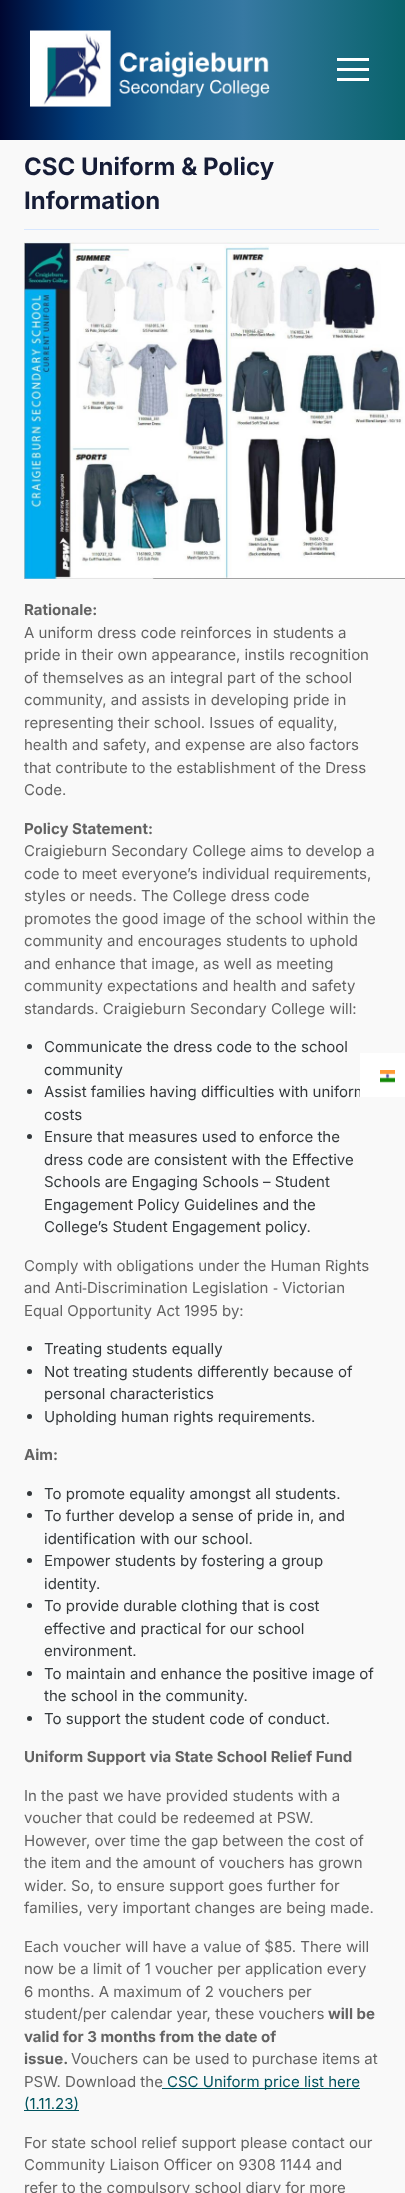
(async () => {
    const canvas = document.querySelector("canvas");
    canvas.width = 405;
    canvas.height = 2193;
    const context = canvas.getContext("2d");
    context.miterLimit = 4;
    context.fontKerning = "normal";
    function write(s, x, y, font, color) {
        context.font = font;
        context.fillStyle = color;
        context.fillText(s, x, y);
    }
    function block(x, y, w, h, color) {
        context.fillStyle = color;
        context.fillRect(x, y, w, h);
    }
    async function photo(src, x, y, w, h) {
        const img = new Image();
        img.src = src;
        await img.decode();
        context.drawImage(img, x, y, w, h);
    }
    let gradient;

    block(0, 0, 405, 2193, "rgb(249, 249, 249)");
    gradient = context.createLinearGradient(405, 70, 0, 70);
    gradient.addColorStop(0, "rgb(9, 99, 107)");
    gradient.addColorStop(0.4, "rgb(55, 121, 163)");
    gradient.addColorStop(0.6, "rgb(31, 104, 150)");
    gradient.addColorStop(0.8, "rgb(0, 63, 126)");
    gradient.addColorStop(1, "rgb(0, 7, 49)");
    context.fillStyle = gradient;
    context.fillRect(0, 0, 405, 140);
    await photo("media/1.png", 30, 30, 240, 77);
    block(337, 58, 32, 3, "rgb(255, 255, 255)");
    block(337, 68, 32, 3, "rgb(255, 255, 255)");
    block(337, 78, 32, 3, "rgb(255, 255, 255)");
    block(24, 229, 355, 1, "rgb(215, 231, 255)");
    write("CSC Uniform & Policy", 24, 175, "bold 24px Inter", "rgb(22, 29, 55)");
    write("Information", 24, 209, "bold 24px Inter", "rgb(22, 29, 55)");
    await photo("media/2.png", 24, 242, 381, 337);
    write("Rationale:", 24, 615, "bold 15px Inter", "rgb(99, 99, 99)");
    write("A uniform dress code reinforces in students a", 24, 638, "15px Inter", "rgb(99, 99, 99)");
    write("pride in their own appearance, instils recognition", 24, 660, "15px Inter", "rgb(99, 99, 99)");
    write("of themselves as an integral part of the school", 24, 683, "15px Inter", "rgb(99, 99, 99)");
    write("community, and assists in developing pride in", 24, 705, "15px Inter", "rgb(99, 99, 99)");
    write("representing their school. Issues of equality,", 24, 728, "15px Inter", "rgb(99, 99, 99)");
    write("health and safety, and expense are also factors", 24, 750, "15px Inter", "rgb(99, 99, 99)");
    write("that contribute to the establishment of the Dress", 24, 773, "15px Inter", "rgb(99, 99, 99)");
    write("Code.", 24, 795, "15px Inter", "rgb(99, 99, 99)");
    write("Policy Statement:", 24, 834, "bold 15px Inter", "rgb(99, 99, 99)");
    write("Craigieburn Secondary College aims to develop a", 24, 856, "15px Inter", "rgb(99, 99, 99)");
    write("code to meet everyone’s individual requirements,", 24, 879, "15px Inter", "rgb(99, 99, 99)");
    write("styles or needs. The College dress code", 24, 901, "15px Inter", "rgb(99, 99, 99)");
    write("promotes the good image of the school within the", 24, 924, "15px Inter", "rgb(99, 99, 99)");
    write("community and encourages students to uphold", 24, 946, "15px Inter", "rgb(99, 99, 99)");
    write("and enhance that image, as well as meeting", 24, 969, "15px Inter", "rgb(99, 99, 99)");
    write("community expectations and health and safety", 24, 991, "15px Inter", "rgb(99, 99, 99)");
    write("standards. Craigieburn Secondary College will:", 24, 1014, "15px Inter", "rgb(99, 99, 99)");
    context.fillStyle = "rgb(52, 57, 60)";
    context.beginPath();
    context.arc(29.5, 1046.5, 2.5, 0, Math.PI * 2);
    context.fill();
    write("Communicate the dress code to the school", 44, 1052, "15px Inter", "rgb(52, 57, 60)");
    write("community", 44, 1075, "15px Inter", "rgb(52, 57, 60)");
    context.beginPath();
    context.arc(29.5, 1091.5, 2.5, 0, Math.PI * 2);
    context.fill();
    write("Assist families having difficulties with uniform", 44, 1097, "15px Inter", "rgb(52, 57, 60)");
    write("costs", 44, 1120, "15px Inter", "rgb(52, 57, 60)");
    context.beginPath();
    context.arc(29.5, 1136.5, 2.5, 0, Math.PI * 2);
    context.fill();
    write("Ensure that measures used to enforce the", 44, 1142, "15px Inter", "rgb(52, 57, 60)");
    write("dress code are consistent with the Effective", 44, 1165, "15px Inter", "rgb(52, 57, 60)");
    write("Schools are Engaging Schools – Student", 44, 1187, "15px Inter", "rgb(52, 57, 60)");
    write("Engagement Policy Guidelines and the", 44, 1210, "15px Inter", "rgb(52, 57, 60)");
    write("College’s Student Engagement policy.", 44, 1232, "15px Inter", "rgb(52, 57, 60)");
    write("Comply with obligations under the Human Rights", 24, 1271, "15px Inter", "rgb(99, 99, 99)");
    write("and Anti", 24, 1293, "15px Inter", "rgb(99, 99, 99)");
    write("‐", 82, 1293, "15px Liberation Sans", "rgb(99, 99, 99)");
    write("Discrimination Legislation", 87, 1293, "15px Inter", "rgb(99, 99, 99)");
    write("‐", 273, 1293, "15px Liberation Sans", "rgb(99, 99, 99)");
    write("Victorian", 282, 1293, "15px Inter", "rgb(99, 99, 99)");
    write("Equal Opportunity Act 1995 by:", 24, 1316, "15px Inter", "rgb(99, 99, 99)");
    context.fillStyle = "rgb(52, 57, 60)";
    context.beginPath();
    context.arc(29.5, 1348.5, 2.5, 0, Math.PI * 2);
    context.fill();
    write("Treating students equally", 44, 1354, "15px Inter", "rgb(52, 57, 60)");
    context.beginPath();
    context.arc(29.5, 1371.5, 2.5, 0, Math.PI * 2);
    context.fill();
    write("Not treating students differently because of", 44, 1377, "15px Inter", "rgb(52, 57, 60)");
    write("personal characteristics", 44, 1399, "15px Inter", "rgb(52, 57, 60)");
    context.beginPath();
    context.arc(29.5, 1416.5, 2.5, 0, Math.PI * 2);
    context.fill();
    write("Upholding human rights requirements.", 44, 1422, "15px Inter", "rgb(52, 57, 60)");
    write("Aim:", 24, 1460, "bold 15px Inter", "rgb(99, 99, 99)");
    context.fillStyle = "rgb(52, 57, 60)";
    context.beginPath();
    context.arc(29.5, 1493.5, 2.5, 0, Math.PI * 2);
    context.fill();
    write("To promote equality amongst all students.", 44, 1499, "15px Inter", "rgb(52, 57, 60)");
    context.beginPath();
    context.arc(29.5, 1515.5, 2.5, 0, Math.PI * 2);
    context.fill();
    write("To further develop a sense of pride in, and", 44, 1521, "15px Inter", "rgb(52, 57, 60)");
    write("identification with our school.", 44, 1544, "15px Inter", "rgb(52, 57, 60)");
    context.beginPath();
    context.arc(29.5, 1560.5, 2.5, 0, Math.PI * 2);
    context.fill();
    write("Empower students by fostering a group", 44, 1566, "15px Inter", "rgb(52, 57, 60)");
    write("identity.", 44, 1589, "15px Inter", "rgb(52, 57, 60)");
    context.beginPath();
    context.arc(29.5, 1605.5, 2.5, 0, Math.PI * 2);
    context.fill();
    write("To provide durable clothing that is cost", 44, 1611, "15px Inter", "rgb(52, 57, 60)");
    write("effective and practical for our school", 44, 1634, "15px Inter", "rgb(52, 57, 60)");
    write("environment.", 44, 1656, "15px Inter", "rgb(52, 57, 60)");
    context.beginPath();
    context.arc(29.5, 1673.5, 2.5, 0, Math.PI * 2);
    context.fill();
    write("To maintain and enhance the positive image of", 44, 1679, "15px Inter", "rgb(52, 57, 60)");
    write("the school in the community.", 44, 1701, "15px Inter", "rgb(52, 57, 60)");
    context.beginPath();
    context.arc(29.5, 1718.5, 2.5, 0, Math.PI * 2);
    context.fill();
    write("To support the student code of conduct.", 44, 1724, "15px Inter", "rgb(52, 57, 60)");
    write("Uniform Support via State School Relief Fund", 24, 1762, "bold 15px Inter", "rgb(99, 99, 99)");
    write("In the past we have provided students with a", 24, 1801, "15px Inter", "rgb(99, 99, 99)");
    write("voucher that could be redeemed at PSW.", 24, 1823, "15px Inter", "rgb(99, 99, 99)");
    write("However, over time the gap between the cost of", 24, 1846, "15px Inter", "rgb(99, 99, 99)");
    write("the item and the amount of vouchers has grown", 24, 1868, "15px Inter", "rgb(99, 99, 99)");
    write("wider. So, to ensure support goes further for", 24, 1891, "15px Inter", "rgb(99, 99, 99)");
    write("families, very important changes are being made.", 24, 1913, "15px Inter", "rgb(99, 99, 99)");
    write("Each voucher will have a value of $85. There will", 24, 1952, "15px Inter", "rgb(99, 99, 99)");
    write("now be a limit of 1 voucher per application every", 24, 1974, "15px Inter", "rgb(99, 99, 99)");
    write("6 months. A maximum of 2 vouchers per", 24, 1997, "15px Inter", "rgb(99, 99, 99)");
    write("student/per calendar year, these vouchers", 24, 2019, "15px Inter", "rgb(99, 99, 99)");
    write("will be", 328, 2019, "bold 15px Inter", "rgb(99, 99, 99)");
    write("valid for 3 months from the date of", 24, 2042, "bold 15px Inter", "rgb(99, 99, 99)");
    write("issue.", 24, 2064, "bold 15px Inter", "rgb(99, 99, 99)");
    write("Vouchers can be used to purchase items at", 71, 2064, "15px Inter", "rgb(99, 99, 99)");
    write("PSW. Download the", 24, 2087, "15px Inter", "rgb(99, 99, 99)");
    block(162, 2088, 198, 1, "rgb(0, 83, 94)");
    write("CSC Uniform price list here", 167, 2087, "15px Inter", "rgb(0, 83, 94)");
    block(24, 2110, 55, 1, "rgb(0, 83, 94)");
    write("(1.11.23)", 24, 2109, "15px Inter", "rgb(0, 83, 94)");
    write("For state school relief support please contact our", 24, 2148, "15px Inter", "rgb(99, 99, 99)");
    write("Community Liaison Officer on 9308 1144 and", 24, 2170, "15px Inter", "rgb(99, 99, 99)");
    write("refer to the compulsory school diary for more", 24, 2193, "15px Inter", "rgb(99, 99, 99)");
    block(360, 1053, 45, 44, "rgb(255, 255, 255)");
    await photo("media/3.png", 380, 1070, 15, 13);
})();
